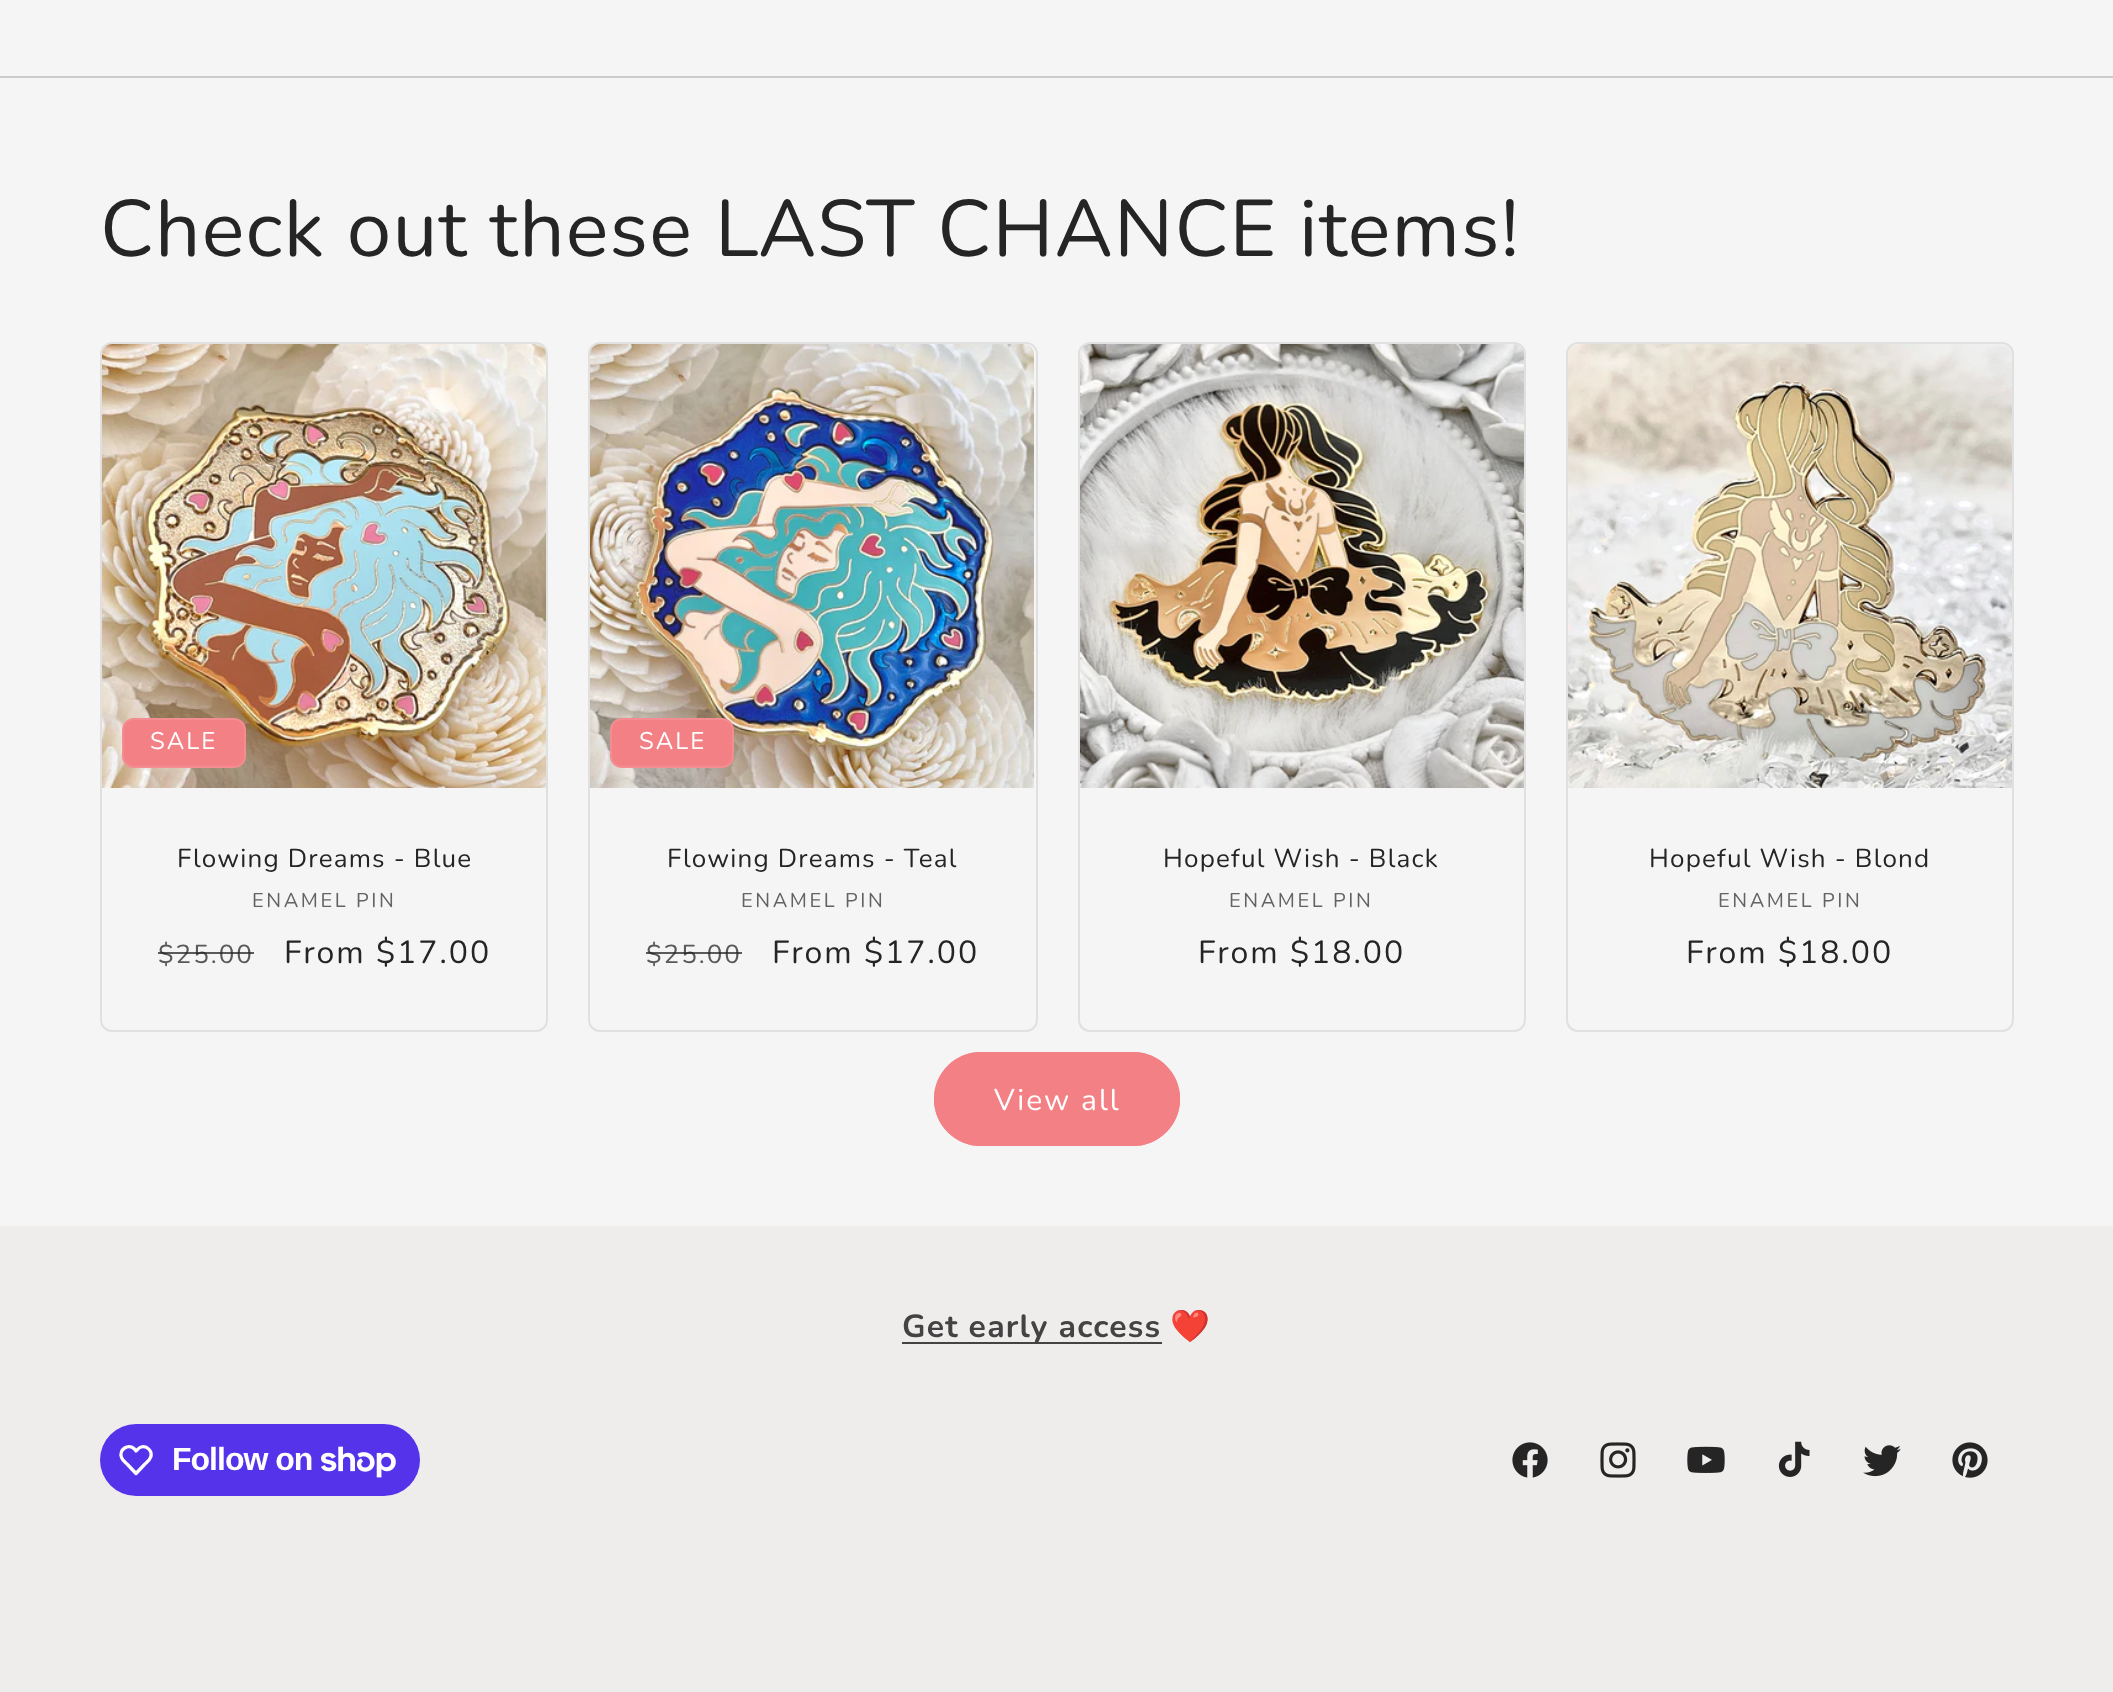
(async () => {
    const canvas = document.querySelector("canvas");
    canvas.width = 2113;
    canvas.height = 1692;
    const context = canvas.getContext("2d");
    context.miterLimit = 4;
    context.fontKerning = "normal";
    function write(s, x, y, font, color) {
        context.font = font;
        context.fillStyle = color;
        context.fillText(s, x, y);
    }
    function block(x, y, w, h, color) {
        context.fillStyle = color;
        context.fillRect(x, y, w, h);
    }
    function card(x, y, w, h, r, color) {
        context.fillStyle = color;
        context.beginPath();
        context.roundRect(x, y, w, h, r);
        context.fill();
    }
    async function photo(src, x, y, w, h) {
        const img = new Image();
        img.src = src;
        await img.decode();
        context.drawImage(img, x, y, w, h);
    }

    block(0, 0, 2113, 1692, "rgb(245, 245, 245)");
    block(0, 76, 2113, 2, "rgb(203, 203, 203)");
    context.letterSpacing = "1.2px";
    write("Check out these LAST CHANCE items!", 100, 256, "80px Nunito", "rgb(37, 37, 37)");
    context.beginPath();
    context.roundRect(101, 343, 446, 688, 11);
    context.strokeStyle = "rgb(224, 224, 224)";
    context.lineWidth = 2;
    context.stroke();
    await photo("media/1.png", 102, 344, 444, 444);
    card(122, 718, 124, 50, 12, "rgb(242, 128, 133)");
    context.beginPath();
    context.roundRect(123, 719, 122, 48, 11);
    context.strokeStyle = "rgba(255, 255, 255, 0.1)";
    context.stroke();
    context.letterSpacing = "2px";
    write("SALE", 150, 749, "24px Nunito", "rgb(255, 255, 255)");
    context.letterSpacing = "1.2px";
    write("Flowing Dreams - Blue", 177, 867, "26px Nunito", "rgb(37, 37, 37)");
    context.letterSpacing = "2.6px";
    write("ENAMEL PIN", 252, 907, "20px Nunito", "rgb(99, 99, 99)");
    context.letterSpacing = "2px";
    write("$25.00", 158, 963, "26px Nunito", "rgb(89, 89, 89)");
    block(158, 952, 96, 2, "rgba(37, 37, 37, 0.75)");
    write("From $17.00", 284, 963, "32px Nunito", "rgb(37, 37, 37)");
    context.beginPath();
    context.roundRect(589, 343, 448, 688, 11);
    context.strokeStyle = "rgb(224, 224, 224)";
    context.stroke();
    await photo("media/2.png", 590, 344, 444, 444);
    card(610, 718, 124, 50, 12, "rgb(242, 128, 133)");
    context.beginPath();
    context.roundRect(611, 719, 122, 48, 11);
    context.strokeStyle = "rgba(255, 255, 255, 0.1)";
    context.stroke();
    write("SALE", 639, 749, "24px Nunito", "rgb(255, 255, 255)");
    context.letterSpacing = "1.2px";
    write("Flowing Dreams - Teal", 667, 867, "26px Nunito", "rgb(37, 37, 37)");
    context.letterSpacing = "2.6px";
    write("ENAMEL PIN", 741, 907, "20px Nunito", "rgb(99, 99, 99)");
    context.letterSpacing = "2px";
    write("$25.00", 646, 963, "26px Nunito", "rgb(89, 89, 89)");
    block(646, 952, 96, 2, "rgba(37, 37, 37, 0.75)");
    write("From $17.00", 772, 963, "32px Nunito", "rgb(37, 37, 37)");
    context.beginPath();
    context.roundRect(1079, 343, 446, 688, 11);
    context.strokeStyle = "rgb(224, 224, 224)";
    context.stroke();
    await photo("media/3.png", 1080, 344, 444, 444);
    context.letterSpacing = "1.2px";
    write("Hopeful Wish - Black", 1163, 867, "26px Nunito", "rgb(37, 37, 37)");
    context.letterSpacing = "2.6px";
    write("ENAMEL PIN", 1229, 907, "20px Nunito", "rgb(99, 99, 99)");
    context.letterSpacing = "2px";
    write("From $18.00", 1198, 963, "32px Nunito", "rgb(37, 37, 37)");
    context.beginPath();
    context.roundRect(1567, 343, 446, 688, 11);
    context.stroke();
    await photo("media/4.png", 1568, 344, 444, 444);
    context.letterSpacing = "1.2px";
    write("Hopeful Wish - Blond", 1649, 867, "26px Nunito", "rgb(37, 37, 37)");
    context.letterSpacing = "2.6px";
    write("ENAMEL PIN", 1718, 907, "20px Nunito", "rgb(99, 99, 99)");
    context.letterSpacing = "2px";
    write("From $18.00", 1686, 963, "32px Nunito", "rgb(37, 37, 37)");
    card(934, 1052, 246, 94, 47, "rgb(242, 128, 133)");
    context.beginPath();
    context.roundRect(935, 1053, 244, 92, 46);
    context.strokeStyle = "rgb(242, 128, 133)";
    context.stroke();
    write("View all", 994, 1110, "30px Nunito", "rgb(255, 255, 255)");
    block(0, 1226, 2113, 466, "rgb(239, 236, 236)");
    block(902, 1342, 260, 2, "rgb(67, 67, 67)");
    context.letterSpacing = "1.2px";
    write("Get early access", 902, 1337, "bold 32px Nunito", "rgb(67, 67, 67)");
    write("❤️", 1170, 1337, "32px Noto Color Emoji", "rgb(89, 89, 89)");
    card(100, 1424, 320, 72, 36, "rgb(84, 51, 235)");
    context.beginPath();
    context.moveTo(134.5, 1449);
    context.lineTo(136, 1451);
    context.bezierCurveTo(137.5, 1449.5, 139, 1447.5, 141, 1447);
    context.bezierCurveTo(147, 1445, 153, 1451.5, 150.5, 1457.5);
    context.bezierCurveTo(149.5, 1460.5, 146.5, 1462.5, 144.5, 1464.5);
    context.lineTo(136, 1473.5);
    context.lineTo(127.5, 1464.5);
    context.bezierCurveTo(125.5, 1462.5, 122.5, 1460.5, 121.5, 1457.5);
    context.bezierCurveTo(118.5, 1449.5, 128.5, 1443, 134.5, 1449);
    context.closePath();
    context.strokeStyle = "rgb(255, 255, 255)";
    context.lineWidth = 3.3;
    context.lineJoin = "round";
    context.stroke();
    context.letterSpacing = "-1px";
    write("Follow on", 172, 1470, "bold 32px Liberation Sans", "rgb(255, 255, 255)");
    await photo("media/5.png", 321, 1446, 75, 32);
    await photo("media/6.png", 1512, 1442, 36, 36);
    await photo("media/7.png", 1600, 1442, 36, 36);
    await photo("media/8.png", 1687, 1446, 38, 27);
    await photo("media/9.png", 1778, 1441, 32, 36);
    await photo("media/10.png", 1863, 1445, 38, 32);
    await photo("media/11.png", 1952, 1442, 36, 36);
})();
